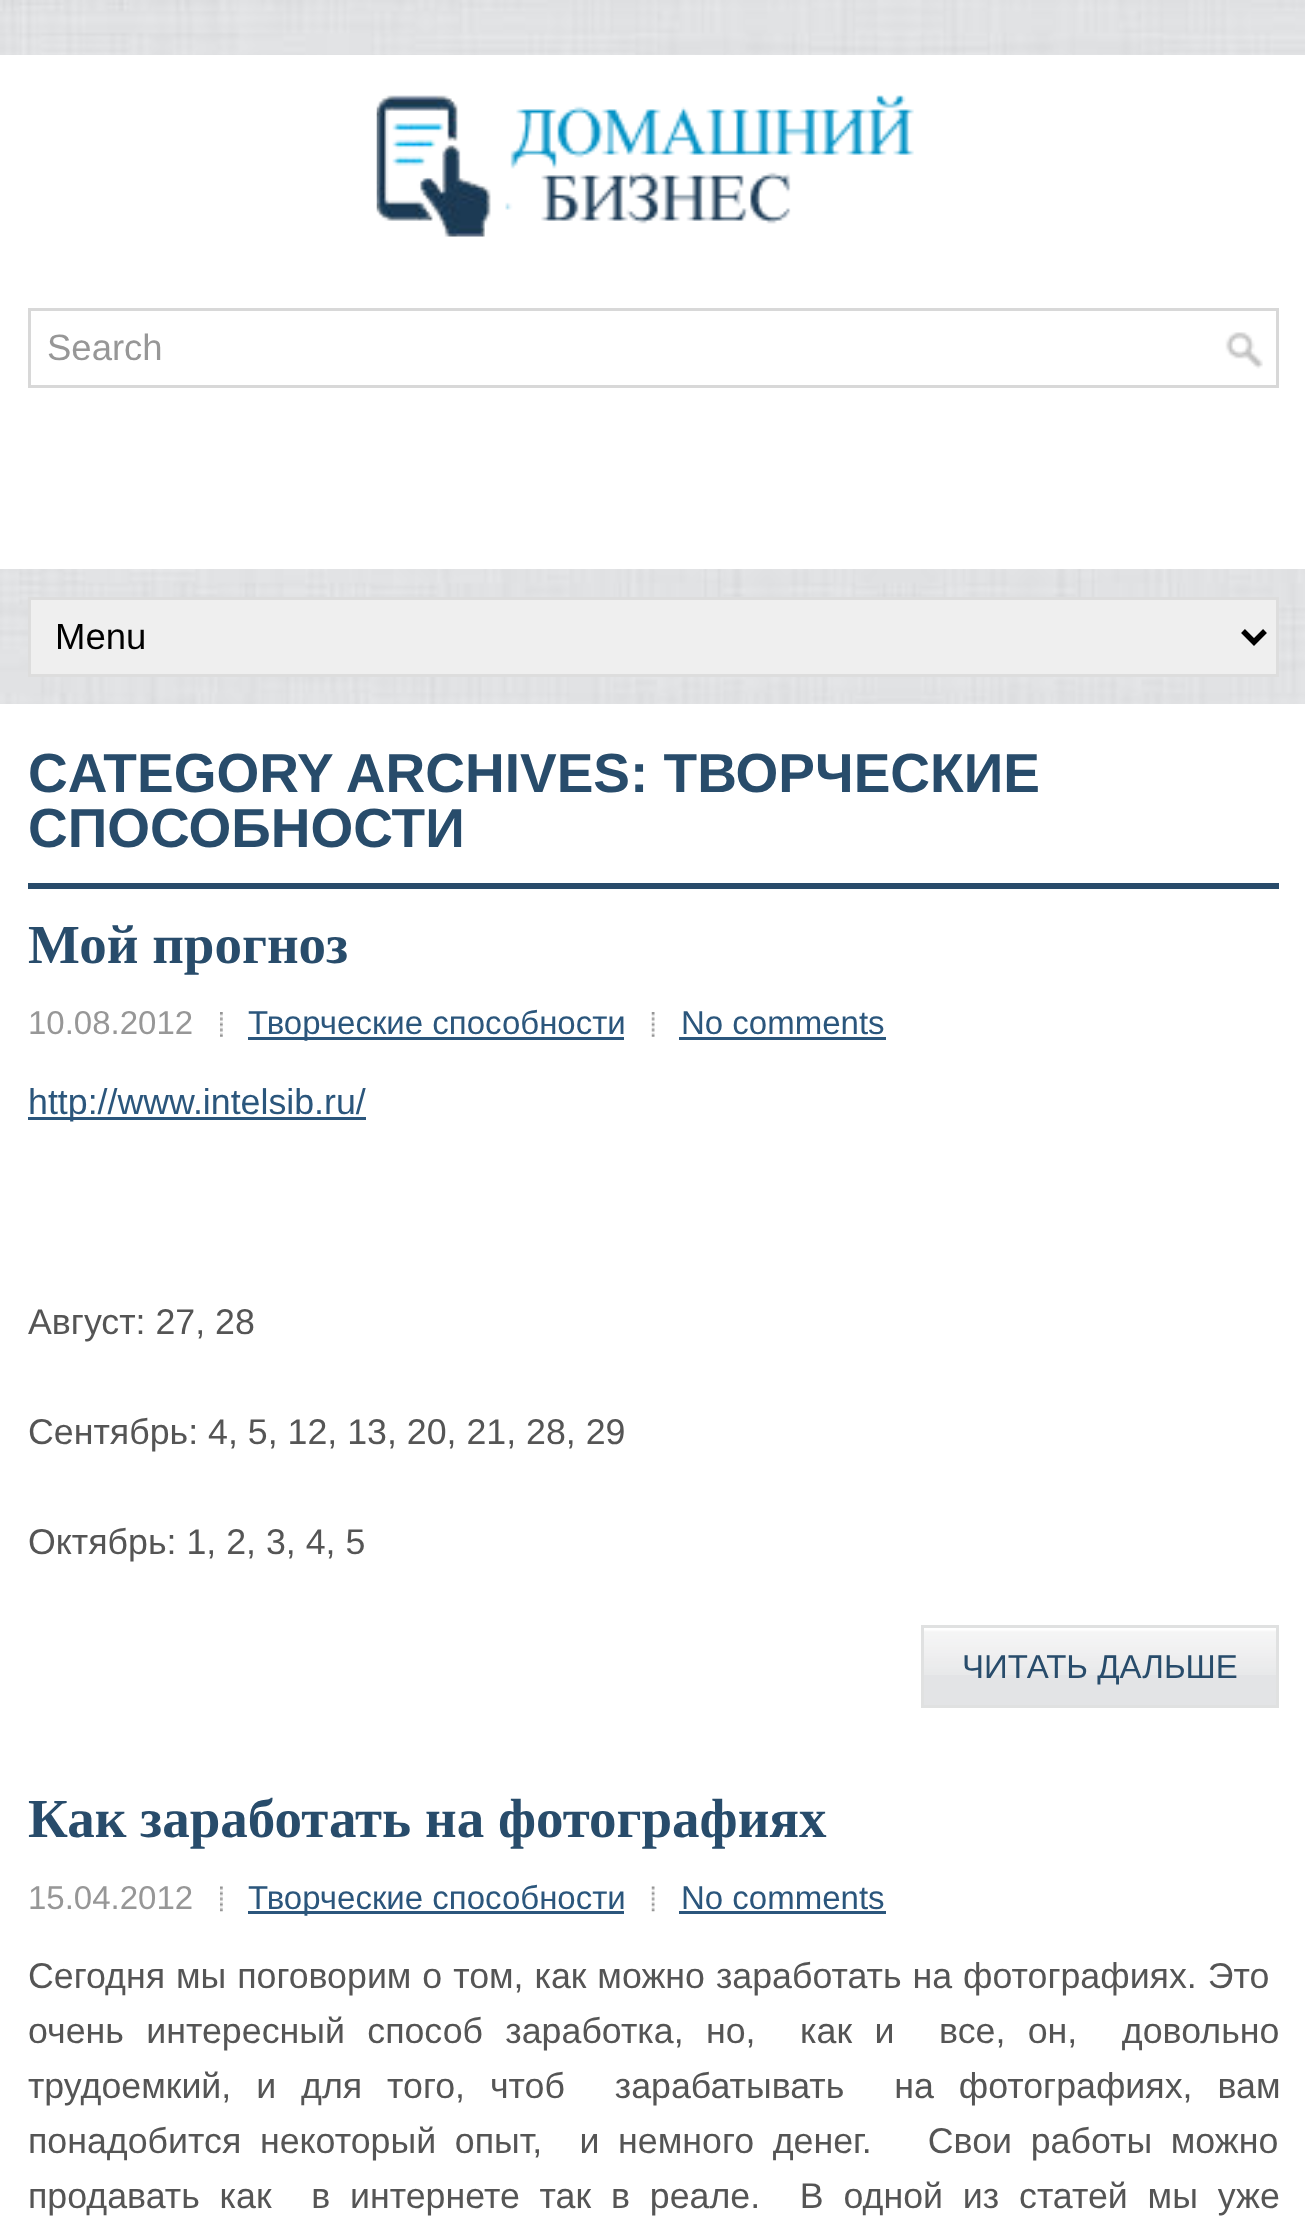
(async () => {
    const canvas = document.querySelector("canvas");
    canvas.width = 1305;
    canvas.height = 2232;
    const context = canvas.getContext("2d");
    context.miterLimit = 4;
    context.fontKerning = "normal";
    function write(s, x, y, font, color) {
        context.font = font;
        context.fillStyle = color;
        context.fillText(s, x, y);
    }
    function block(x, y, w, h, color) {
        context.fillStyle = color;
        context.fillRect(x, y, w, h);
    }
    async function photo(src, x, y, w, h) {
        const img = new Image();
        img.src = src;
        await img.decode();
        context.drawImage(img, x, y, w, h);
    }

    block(0, 0, 1305, 2232, "rgb(255, 255, 255)");
    await photo("media/1.png", 0, 0, 1305, 704);
    block(0, 55, 1305, 514, "rgb(255, 255, 255)");
    await photo("media/2.png", 376, 95, 538, 142);
    await photo("media/3.png", 1225, 332, 38, 37);
    context.strokeStyle = "rgb(216, 216, 216)";
    context.lineWidth = 3;
    context.strokeRect(29.5, 309.5, 1248, 77);
    write("Search", 47, 360, "36.5px Liberation Sans", "rgb(151, 151, 151)");
    context.fillStyle = "rgb(239, 239, 239)";
    context.beginPath();
    context.rect(29.5, 598.5, 1248, 77);
    context.fill();
    context.strokeStyle = "rgb(221, 221, 221)";
    context.stroke();
    context.beginPath();
    context.moveTo(1243, 631);
    context.lineTo(1254, 642);
    context.lineTo(1265, 631);
    context.strokeStyle = "rgb(0, 0, 0)";
    context.lineWidth = 5.5;
    context.stroke();
    write("Menu", 55, 649, "36.5px Liberation Sans", "rgb(0, 0, 0)");
    block(28, 883, 1251, 6, "rgb(40, 75, 106)");
    write("CATEGORY ARCHIVES: ТВОРЧЕСКИЕ", 28, 792, "bold 55px Liberation Sans", "rgb(40, 76, 107)");
    write("СПОСОБНОСТИ", 28, 847, "bold 55px Liberation Sans", "rgb(40, 76, 107)");
    write("Мой прогноз", 28, 963, "bold 55px Liberation Serif", "rgb(40, 76, 107)");
    write("10.08.2012", 28, 1034, "33px Liberation Sans", "rgb(151, 151, 151)");
    await photo("media/4.png", 220, 1012, 3, 25);
    block(248, 1037, 376, 3, "rgb(43, 86, 124)");
    write("Творческие способности", 248, 1034, "33px Liberation Sans", "rgb(43, 86, 124)");
    await photo("media/5.png", 651, 1012, 4, 25);
    write("No comments", 681, 1034, "33px Liberation Sans", "rgb(43, 86, 124)");
    block(679, 1037, 207, 3, "rgb(43, 86, 124)");
    block(28, 1117, 338, 3, "rgb(43, 86, 124)");
    write("http://www.intelsib.ru/", 28, 1114, "35.75px Liberation Sans", "rgb(43, 86, 124)");
    write("Август: 27, 28", 28, 1334, "35.75px Liberation Sans", "rgb(85, 85, 85)");
    write("Сентябрь: 4, 5, 12, 13, 20, 21, 28, 29", 28, 1444, "35.75px Liberation Sans", "rgb(85, 85, 85)");
    write("Октябрь: 1, 2, 3, 4, 5", 28, 1554, "35.75px Liberation Sans", "rgb(85, 85, 85)");
    block(924, 1675, 352, 30, "rgb(227, 228, 230)");
    await photo("media/6.png", 924, 1628, 352, 47);
    context.strokeStyle = "rgb(224, 225, 225)";
    context.lineWidth = 3;
    context.strokeRect(922.5, 1626.5, 355, 80);
    write("ЧИТАТЬ ДАЛЬШЕ", 962, 1678, "33px Liberation Sans", "rgb(40, 76, 107)");
    write("Как заработать на фотографиях", 28, 1837, "bold 55px Liberation Serif", "rgb(40, 76, 107)");
    write("15.04.2012", 28, 1909, "33px Liberation Sans", "rgb(151, 151, 151)");
    await photo("media/7.png", 220, 1886, 3, 26);
    block(248, 1911, 376, 3, "rgb(43, 86, 124)");
    write("Творческие способности", 248, 1909, "33px Liberation Sans", "rgb(43, 86, 124)");
    await photo("media/8.png", 651, 1886, 4, 26);
    write("No comments", 681, 1909, "33px Liberation Sans", "rgb(43, 86, 124)");
    block(679, 1911, 207, 3, "rgb(43, 86, 124)");
    context.wordSpacing = "1px";
    write("Сегодня мы поговорим о том, как можно заработать на фотографиях. Это", 28, 1988, "35.75px Liberation Sans", "rgb(85, 85, 85)");
    context.wordSpacing = "12.4px";
    write("очень интересный способ заработка, но,  как и  все, он,  довольно", 28, 2043, "35.75px Liberation Sans", "rgb(85, 85, 85)");
    context.wordSpacing = "15px";
    write("трудоемкий, и для того, чтоб  зарабатывать  на фотографиях, вам", 28, 2098, "35.75px Liberation Sans", "rgb(85, 85, 85)");
    context.wordSpacing = "8.75px";
    write("понадобится некоторый опыт,  и немного денег.   Свои работы можно", 28, 2153, "35.75px Liberation Sans", "rgb(85, 85, 85)");
    context.wordSpacing = "9.9px";
    write("продавать как  в интернете так в реале.  В одной из статей мы уже", 28, 2208, "35.75px Liberation Sans", "rgb(85, 85, 85)");
})();
